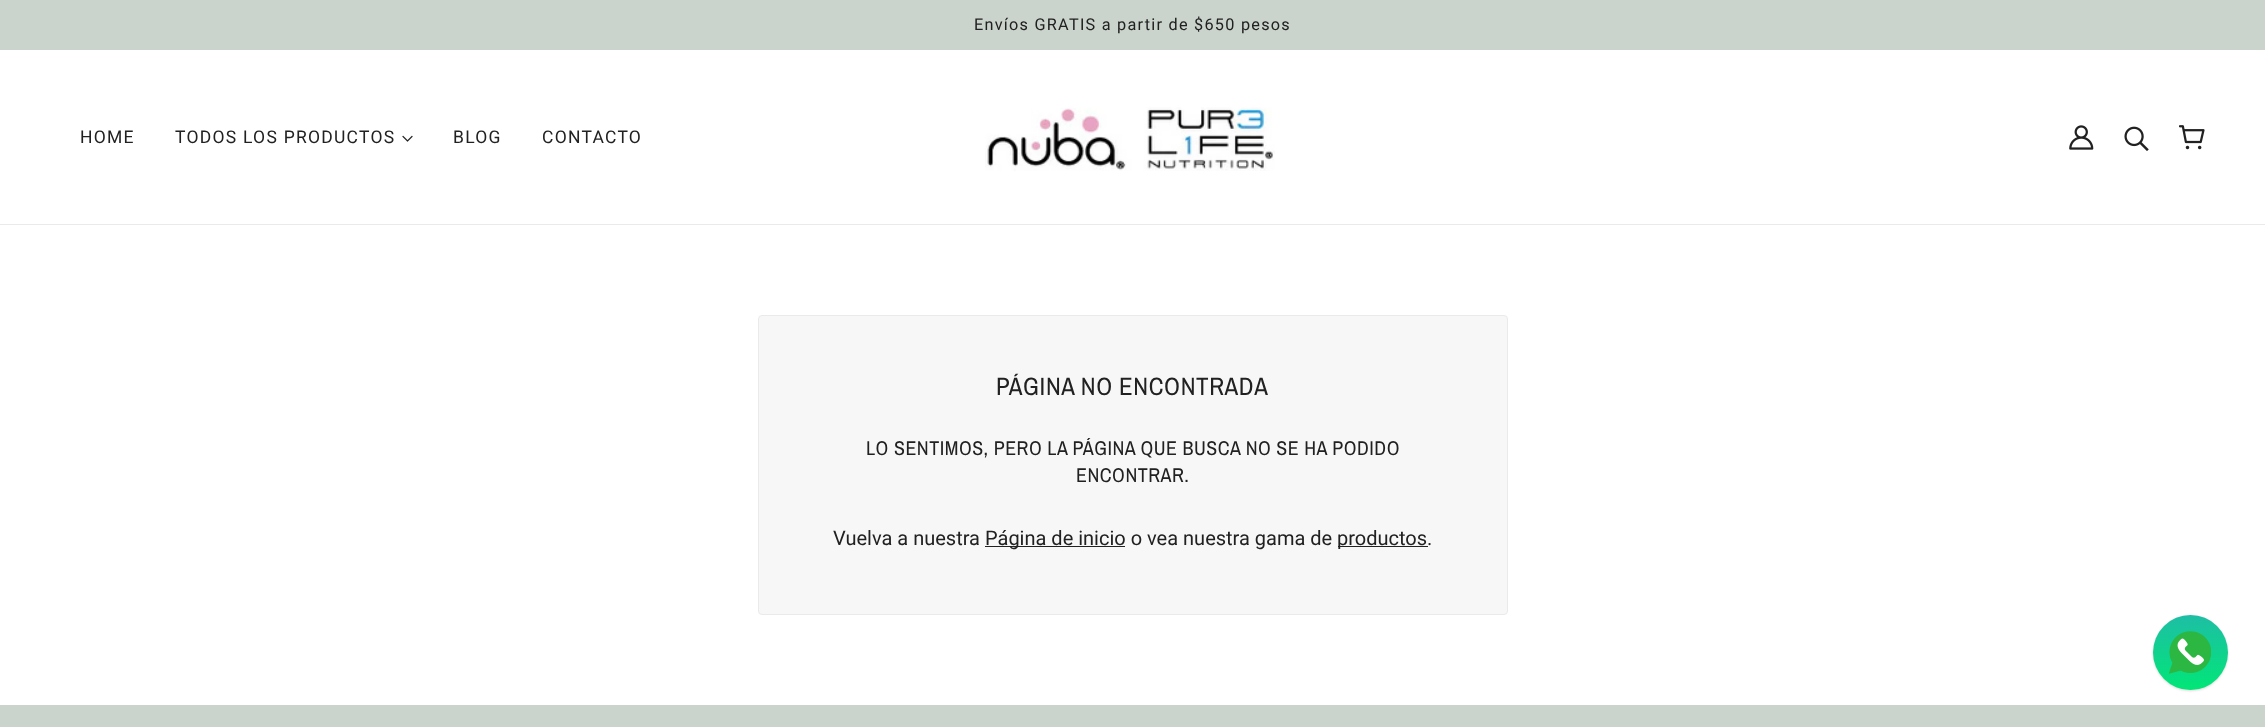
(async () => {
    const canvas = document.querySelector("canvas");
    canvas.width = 2265;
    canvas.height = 727;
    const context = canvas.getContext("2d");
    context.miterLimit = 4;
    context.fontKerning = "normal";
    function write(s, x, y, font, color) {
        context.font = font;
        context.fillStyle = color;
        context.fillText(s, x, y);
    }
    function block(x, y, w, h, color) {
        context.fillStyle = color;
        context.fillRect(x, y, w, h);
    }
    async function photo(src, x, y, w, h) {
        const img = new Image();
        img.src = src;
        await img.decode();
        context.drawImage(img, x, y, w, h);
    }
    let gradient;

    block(0, 0, 2265, 727, "rgb(255, 255, 255)");
    block(0, 0, 2265, 50, "rgb(202, 211, 204)");
    context.letterSpacing = "1.25px";
    write("Envíos GRATIS a partir de $650 pesos", 974, 30, "16.25px Roboto", "rgb(33, 33, 33)");
    block(0, 224, 2265, 1, "rgb(234, 234, 234)");
    write("HOME", 80, 143, "17.5px Roboto", "rgb(33, 33, 33)");
    write("TODOS LOS PRODUCTOS", 175, 143, "17.5px Roboto", "rgb(33, 33, 33)");
    await photo("media/1.png", 402, 135, 11, 7);
    write("BLOG", 453, 143, "17.5px Roboto", "rgb(33, 33, 33)");
    write("CONTACTO", 542, 143, "17.5px Roboto", "rgb(33, 33, 33)");
    await photo("media/2.png", 985, 107, 290, 64);
    await photo("media/3.png", 2069, 125, 25, 25);
    await photo("media/4.png", 2124, 126, 25, 25);
    await photo("media/5.png", 2179, 125, 26, 25);
    context.fillStyle = "rgb(247, 247, 247)";
    context.beginPath();
    context.roundRect(758.5, 315.5, 749, 299, 3.5);
    context.fill();
    context.strokeStyle = "rgb(234, 234, 234)";
    context.stroke();
    context.letterSpacing = "0.6px";
    write("PÁGINA NO ENCONTRADA", 996, 395, "25px Archivo Narrow", "rgb(33, 33, 33)");
    context.letterSpacing = "0.5px";
    write("LO SENTIMOS, PERO LA PÁGINA QUE BUSCA NO SE HA PODIDO", 866, 455, "20px Archivo Narrow", "rgb(33, 33, 33)");
    write("ENCONTRAR.", 1076, 482, "20px Archivo Narrow", "rgb(33, 33, 33)");
    context.letterSpacing = "0px";
    write("Vuelva a nuestra", 833, 545, "20px Roboto", "rgb(33, 33, 33)");
    block(985, 546, 140, 1, "rgb(33, 33, 33)");
    write("Página de inicio o vea nuestra gama de", 985, 545, "20px Roboto", "rgb(33, 33, 33)");
    block(1338, 546, 90, 1, "rgb(33, 33, 33)");
    write("productos.", 1337, 545, "20px Roboto", "rgb(33, 33, 33)");
    block(0, 705, 2265, 22, "rgb(202, 211, 204)");
    context.fillStyle = "rgba(0, 0, 0, 0.15)";
    context.filter = "blur(1px)";
    context.beginPath();
    context.roundRect(2153, 616, 75, 75, 37.5);
    context.fill();
    context.filter = "none";
    gradient = context.createLinearGradient(2190, 615, 2190, 690);
    gradient.addColorStop(0, "rgb(30, 190, 165)");
    gradient.addColorStop(1, "rgb(1, 230, 119)");
    context.fillStyle = gradient;
    context.beginPath();
    context.arc(2190.5, 652.5, 37.5, 0, Math.PI * 2);
    context.fill();
    await photo("media/6.png", 2169, 631, 42, 43);
})();
